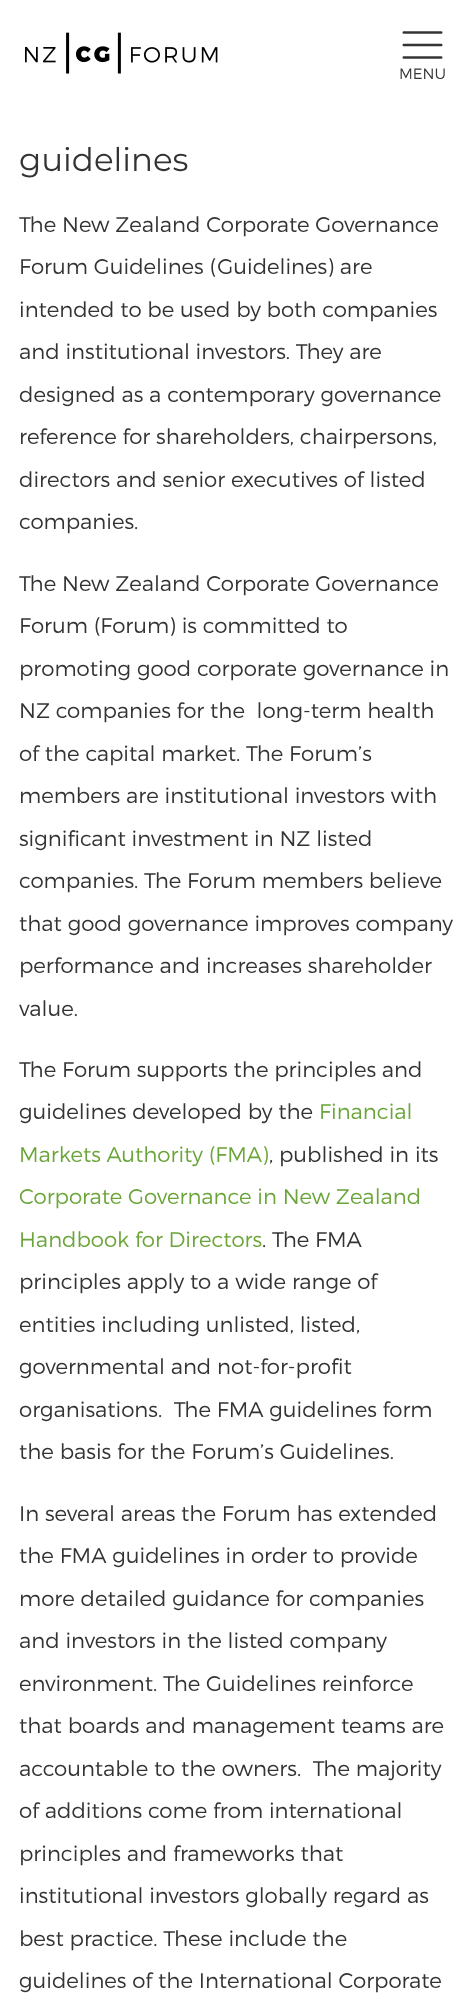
(async () => {
    const canvas = document.querySelector("canvas");
    canvas.width = 472;
    canvas.height = 1994;
    const context = canvas.getContext("2d");
    context.miterLimit = 4;
    context.fontKerning = "normal";
    function write(s, x, y, font, color) {
        context.font = font;
        context.fillStyle = color;
        context.fillText(s, x, y);
    }
    function block(x, y, w, h, color) {
        context.fillStyle = color;
        context.fillRect(x, y, w, h);
    }
    async function photo(src, x, y, w, h) {
        const img = new Image();
        img.src = src;
        await img.decode();
        context.drawImage(img, x, y, w, h);
    }

    block(0, 0, 472, 1994, "rgb(255, 255, 255)");
    await photo("media/1.png", 25, 32, 193, 42);
    await photo("media/2.png", 402, 31, 41, 28);
    write("MENU", 399, 79, "300 15px Montserrat", "rgb(51, 51, 51)");
    write("guidelines", 19, 171, "32.5px Montserrat", "rgb(51, 51, 51)");
    write("The New Zealand Corporate Governance", 19, 232, "300 21.25px Montserrat", "rgb(51, 51, 51)");
    write("Forum Guidelines (Guidelines) are", 19, 274, "300 21.25px Montserrat", "rgb(51, 51, 51)");
    write("intended to be used by both companies", 19, 317, "300 21.25px Montserrat", "rgb(51, 51, 51)");
    write("and institutional investors. They are", 19, 359, "300 21.25px Montserrat", "rgb(51, 51, 51)");
    write("designed as a contemporary governance", 19, 402, "300 21.25px Montserrat", "rgb(51, 51, 51)");
    write("reference for shareholders, chairpersons,", 19, 444, "300 21.25px Montserrat", "rgb(51, 51, 51)");
    write("directors and senior executives of listed", 19, 487, "300 21.25px Montserrat", "rgb(51, 51, 51)");
    write("companies.", 19, 529, "300 21.25px Montserrat", "rgb(51, 51, 51)");
    write("The New Zealand Corporate Governance", 19, 591, "300 21.25px Montserrat", "rgb(51, 51, 51)");
    write("Forum (Forum) is committed to", 19, 633, "300 21.25px Montserrat", "rgb(51, 51, 51)");
    write("promoting good corporate governance in", 19, 676, "300 21.25px Montserrat", "rgb(51, 51, 51)");
    write("NZ companies for the  long-term health", 19, 718, "300 21.25px Montserrat", "rgb(51, 51, 51)");
    write("of the capital market. The Forum’s", 19, 761, "300 21.25px Montserrat", "rgb(51, 51, 51)");
    write("members are institutional investors with", 19, 803, "300 21.25px Montserrat", "rgb(51, 51, 51)");
    write("significant investment in NZ listed", 19, 846, "300 21.25px Montserrat", "rgb(51, 51, 51)");
    write("companies. The Forum members believe", 19, 888, "300 21.25px Montserrat", "rgb(51, 51, 51)");
    write("that good governance improves company", 19, 931, "300 21.25px Montserrat", "rgb(51, 51, 51)");
    write("performance and increases shareholder", 19, 973, "300 21.25px Montserrat", "rgb(51, 51, 51)");
    write("value.", 19, 1016, "300 21.25px Montserrat", "rgb(51, 51, 51)");
    write("The Forum supports the principles and", 19, 1077, "300 21.25px Montserrat", "rgb(51, 51, 51)");
    write("guidelines developed by the", 19, 1119, "300 21.25px Montserrat", "rgb(51, 51, 51)");
    write("Financial", 319, 1119, "300 21.25px Montserrat", "rgb(107, 165, 58)");
    write("Markets Authority (FMA)", 19, 1162, "300 21.25px Montserrat", "rgb(107, 165, 58)");
    write(", published in its", 269, 1162, "300 21.25px Montserrat", "rgb(51, 51, 51)");
    write("Corporate Governance in New Zealand", 19, 1204, "300 21.25px Montserrat", "rgb(107, 165, 58)");
    write("Handbook for Directors", 19, 1247, "300 21.25px Montserrat", "rgb(107, 165, 58)");
    write(". The FMA", 262, 1247, "300 21.25px Montserrat", "rgb(51, 51, 51)");
    write("principles apply to a wide range of", 19, 1289, "300 21.25px Montserrat", "rgb(51, 51, 51)");
    write("entities including unlisted, listed,", 19, 1332, "300 21.25px Montserrat", "rgb(51, 51, 51)");
    write("governmental and not-for-profit", 19, 1374, "300 21.25px Montserrat", "rgb(51, 51, 51)");
    write("organisations.  The FMA guidelines form", 19, 1417, "300 21.25px Montserrat", "rgb(51, 51, 51)");
    write("the basis for the Forum’s Guidelines.", 19, 1459, "300 21.25px Montserrat", "rgb(51, 51, 51)");
    write("In several areas the Forum has extended", 19, 1521, "300 21.25px Montserrat", "rgb(51, 51, 51)");
    write("the FMA guidelines in order to provide", 19, 1563, "300 21.25px Montserrat", "rgb(51, 51, 51)");
    write("more detailed guidance for companies", 19, 1606, "300 21.25px Montserrat", "rgb(51, 51, 51)");
    write("and investors in the listed company", 19, 1648, "300 21.25px Montserrat", "rgb(51, 51, 51)");
    write("environment. The Guidelines reinforce", 19, 1691, "300 21.25px Montserrat", "rgb(51, 51, 51)");
    write("that boards and management teams are", 19, 1733, "300 21.25px Montserrat", "rgb(51, 51, 51)");
    write("accountable to the owners.  The majority", 19, 1776, "300 21.25px Montserrat", "rgb(51, 51, 51)");
    write("of additions come from international", 19, 1818, "300 21.25px Montserrat", "rgb(51, 51, 51)");
    write("principles and frameworks that", 19, 1861, "300 21.25px Montserrat", "rgb(51, 51, 51)");
    write("institutional investors globally regard as", 19, 1903, "300 21.25px Montserrat", "rgb(51, 51, 51)");
    write("best practice. These include the", 19, 1946, "300 21.25px Montserrat", "rgb(51, 51, 51)");
    write("guidelines of the International Corporate", 19, 1988, "300 21.25px Montserrat", "rgb(51, 51, 51)");
})();
